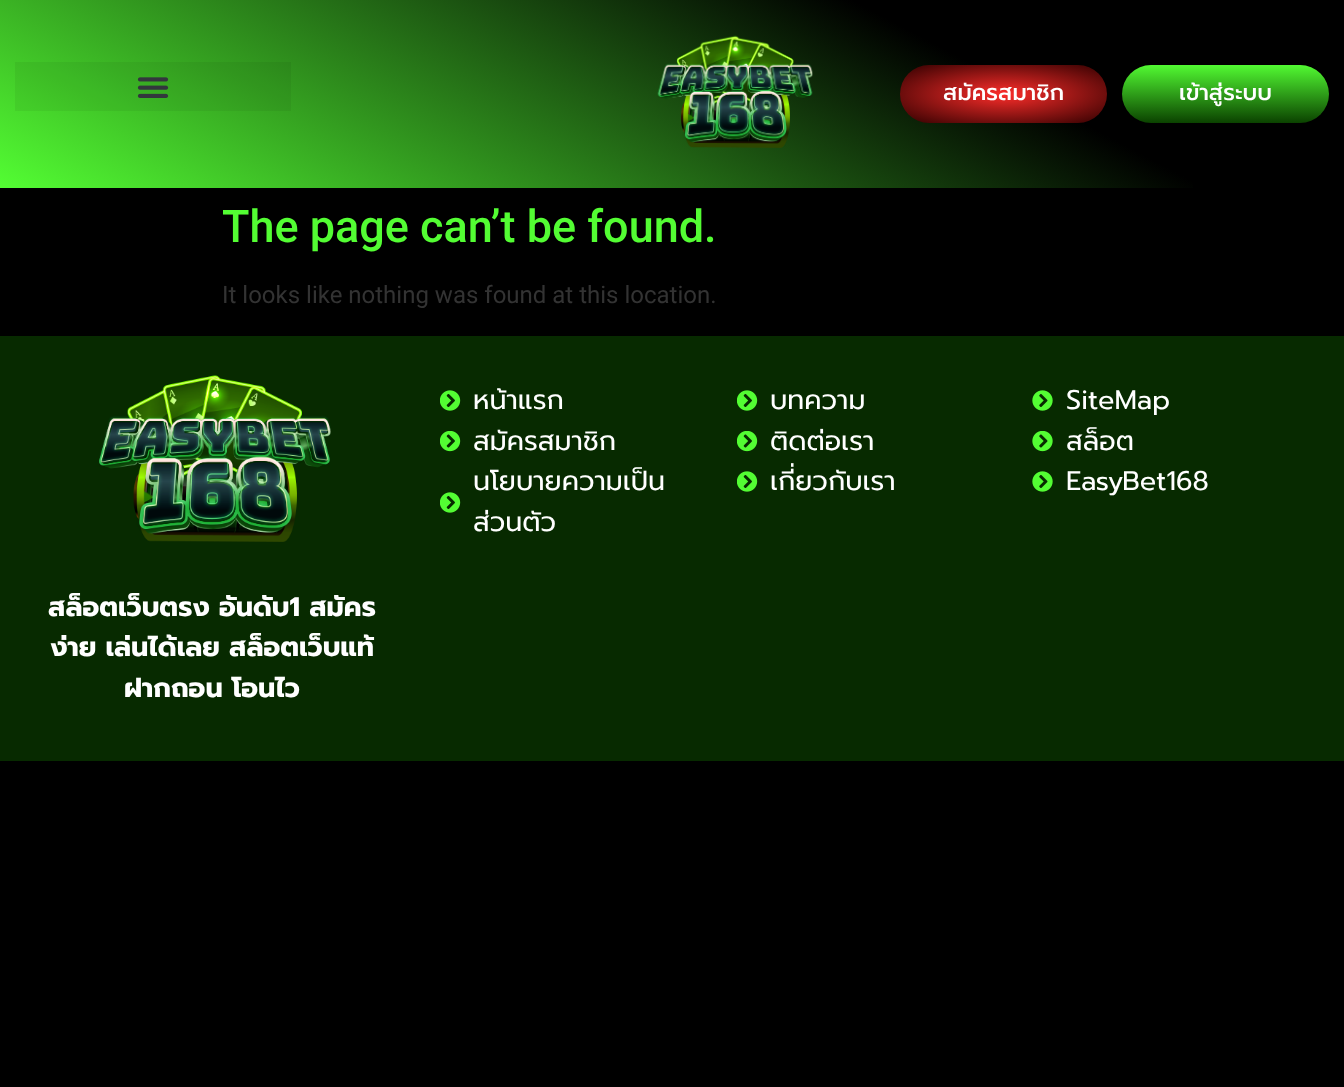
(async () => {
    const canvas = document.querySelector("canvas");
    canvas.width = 1344;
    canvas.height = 1087;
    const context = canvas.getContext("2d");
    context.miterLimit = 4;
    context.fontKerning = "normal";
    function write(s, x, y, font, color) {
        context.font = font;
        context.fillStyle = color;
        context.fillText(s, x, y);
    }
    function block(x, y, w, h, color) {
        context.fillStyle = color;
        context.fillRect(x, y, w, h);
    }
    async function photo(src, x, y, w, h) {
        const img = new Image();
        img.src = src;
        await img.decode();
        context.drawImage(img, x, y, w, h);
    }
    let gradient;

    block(0, 0, 1344, 1087, "rgb(0, 0, 0)");
    gradient = context.createLinearGradient(485, 445, 859, -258);
    gradient.addColorStop(0, "rgb(83, 253, 51)");
    gradient.addColorStop(0.71, "rgb(0, 0, 0)");
    context.fillStyle = gradient;
    context.fillRect(0, 0, 1193, 188);
    block(15, 62, 276, 49, "rgba(0, 0, 0, 0.05)");
    await photo("media/1.png", 137, 77, 32, 21);
    await photo("media/2.png", 657, 35, 156, 113);
    gradient = context.createRadialGradient(1004, 334.73, 0, 1004, 334.73, 146);
    gradient.addColorStop(0, "rgb(253, 45, 42)");
    gradient.addColorStop(1, "rgb(48, 0, 0)");
    context.fillStyle = gradient;
    context.beginPath();
    context.roundRect(900, 65, 207, 58, 29);
    context.save();
    context.clip();
    context.scale(1, 41 / 146);
    context.fillRect(0, 0, 1344, 3871);
    context.restore();
    write("สมัครสมาชิก", 943, 100, "500 22.5px Prompt", "rgb(255, 255, 255)");
    gradient = context.createLinearGradient(1226, 64, 1226, 123);
    gradient.addColorStop(0, "rgb(83, 253, 51)");
    gradient.addColorStop(1, "rgb(11, 66, 0)");
    context.fillStyle = gradient;
    context.beginPath();
    context.roundRect(1122, 65, 207, 58, 29);
    context.fill();
    write("เข้าสู่ระบบ", 1179, 100, "500 22.5px Prompt", "rgb(255, 255, 255)");
    write("The page can’t be found.", 222, 242, "500 45px Roboto", "rgb(83, 253, 51)");
    write("It looks like nothing was found at this location.", 222, 303, "24px Roboto", "rgb(51, 51, 51)");
    block(0, 336, 1344, 425, "rgb(7, 42, 0)");
    await photo("media/3.png", 440, 390, 21, 21);
    write("หน้าแรก", 473, 409, "27px Prompt", "rgb(255, 255, 255)");
    await photo("media/4.png", 440, 431, 21, 21);
    write("สมัครสมาชิก", 473, 450, "27px Prompt", "rgb(255, 255, 255)");
    await photo("media/3.png", 440, 492, 21, 21);
    write("นโยบายความเป็น", 473, 490, "27px Prompt", "rgb(255, 255, 255)");
    write("ส่วนตัว", 473, 531, "27px Prompt", "rgb(255, 255, 255)");
    await photo("media/3.png", 737, 390, 21, 21);
    write("บทความ", 770, 409, "27px Prompt", "rgb(255, 255, 255)");
    write("ติดต่อเรา", 770, 450, "27px Prompt", "rgb(255, 255, 255)");
    await photo("media/5.png", 737, 431, 21, 21);
    await photo("media/3.png", 737, 471, 21, 21);
    write("เกี่ยวกับเรา", 770, 490, "27px Prompt", "rgb(255, 255, 255)");
    await photo("media/6.png", 1032, 390, 21, 21);
    write("SiteMap", 1066, 409, "27px Prompt", "rgb(255, 255, 255)");
    await photo("media/7.png", 1032, 431, 21, 21);
    write("สล็อต", 1066, 450, "27px Prompt", "rgb(255, 255, 255)");
    await photo("media/6.png", 1032, 471, 21, 21);
    write("EasyBet168", 1066, 490, "27px Prompt", "rgb(255, 255, 255)");
    await photo("media/8.png", 99, 375, 232, 167);
    write("สล็อตเว็บตรง อันดับ1 สมัคร", 48, 616, "bold 27px Prompt", "rgb(255, 255, 255)");
    write("ง่าย เล่นได้เลย สล็อตเว็บแท้", 50, 656, "bold 27px Prompt", "rgb(255, 255, 255)");
    write("ฝากถอน โอนไว", 124, 697, "bold 27px Prompt", "rgb(255, 255, 255)");
})();
